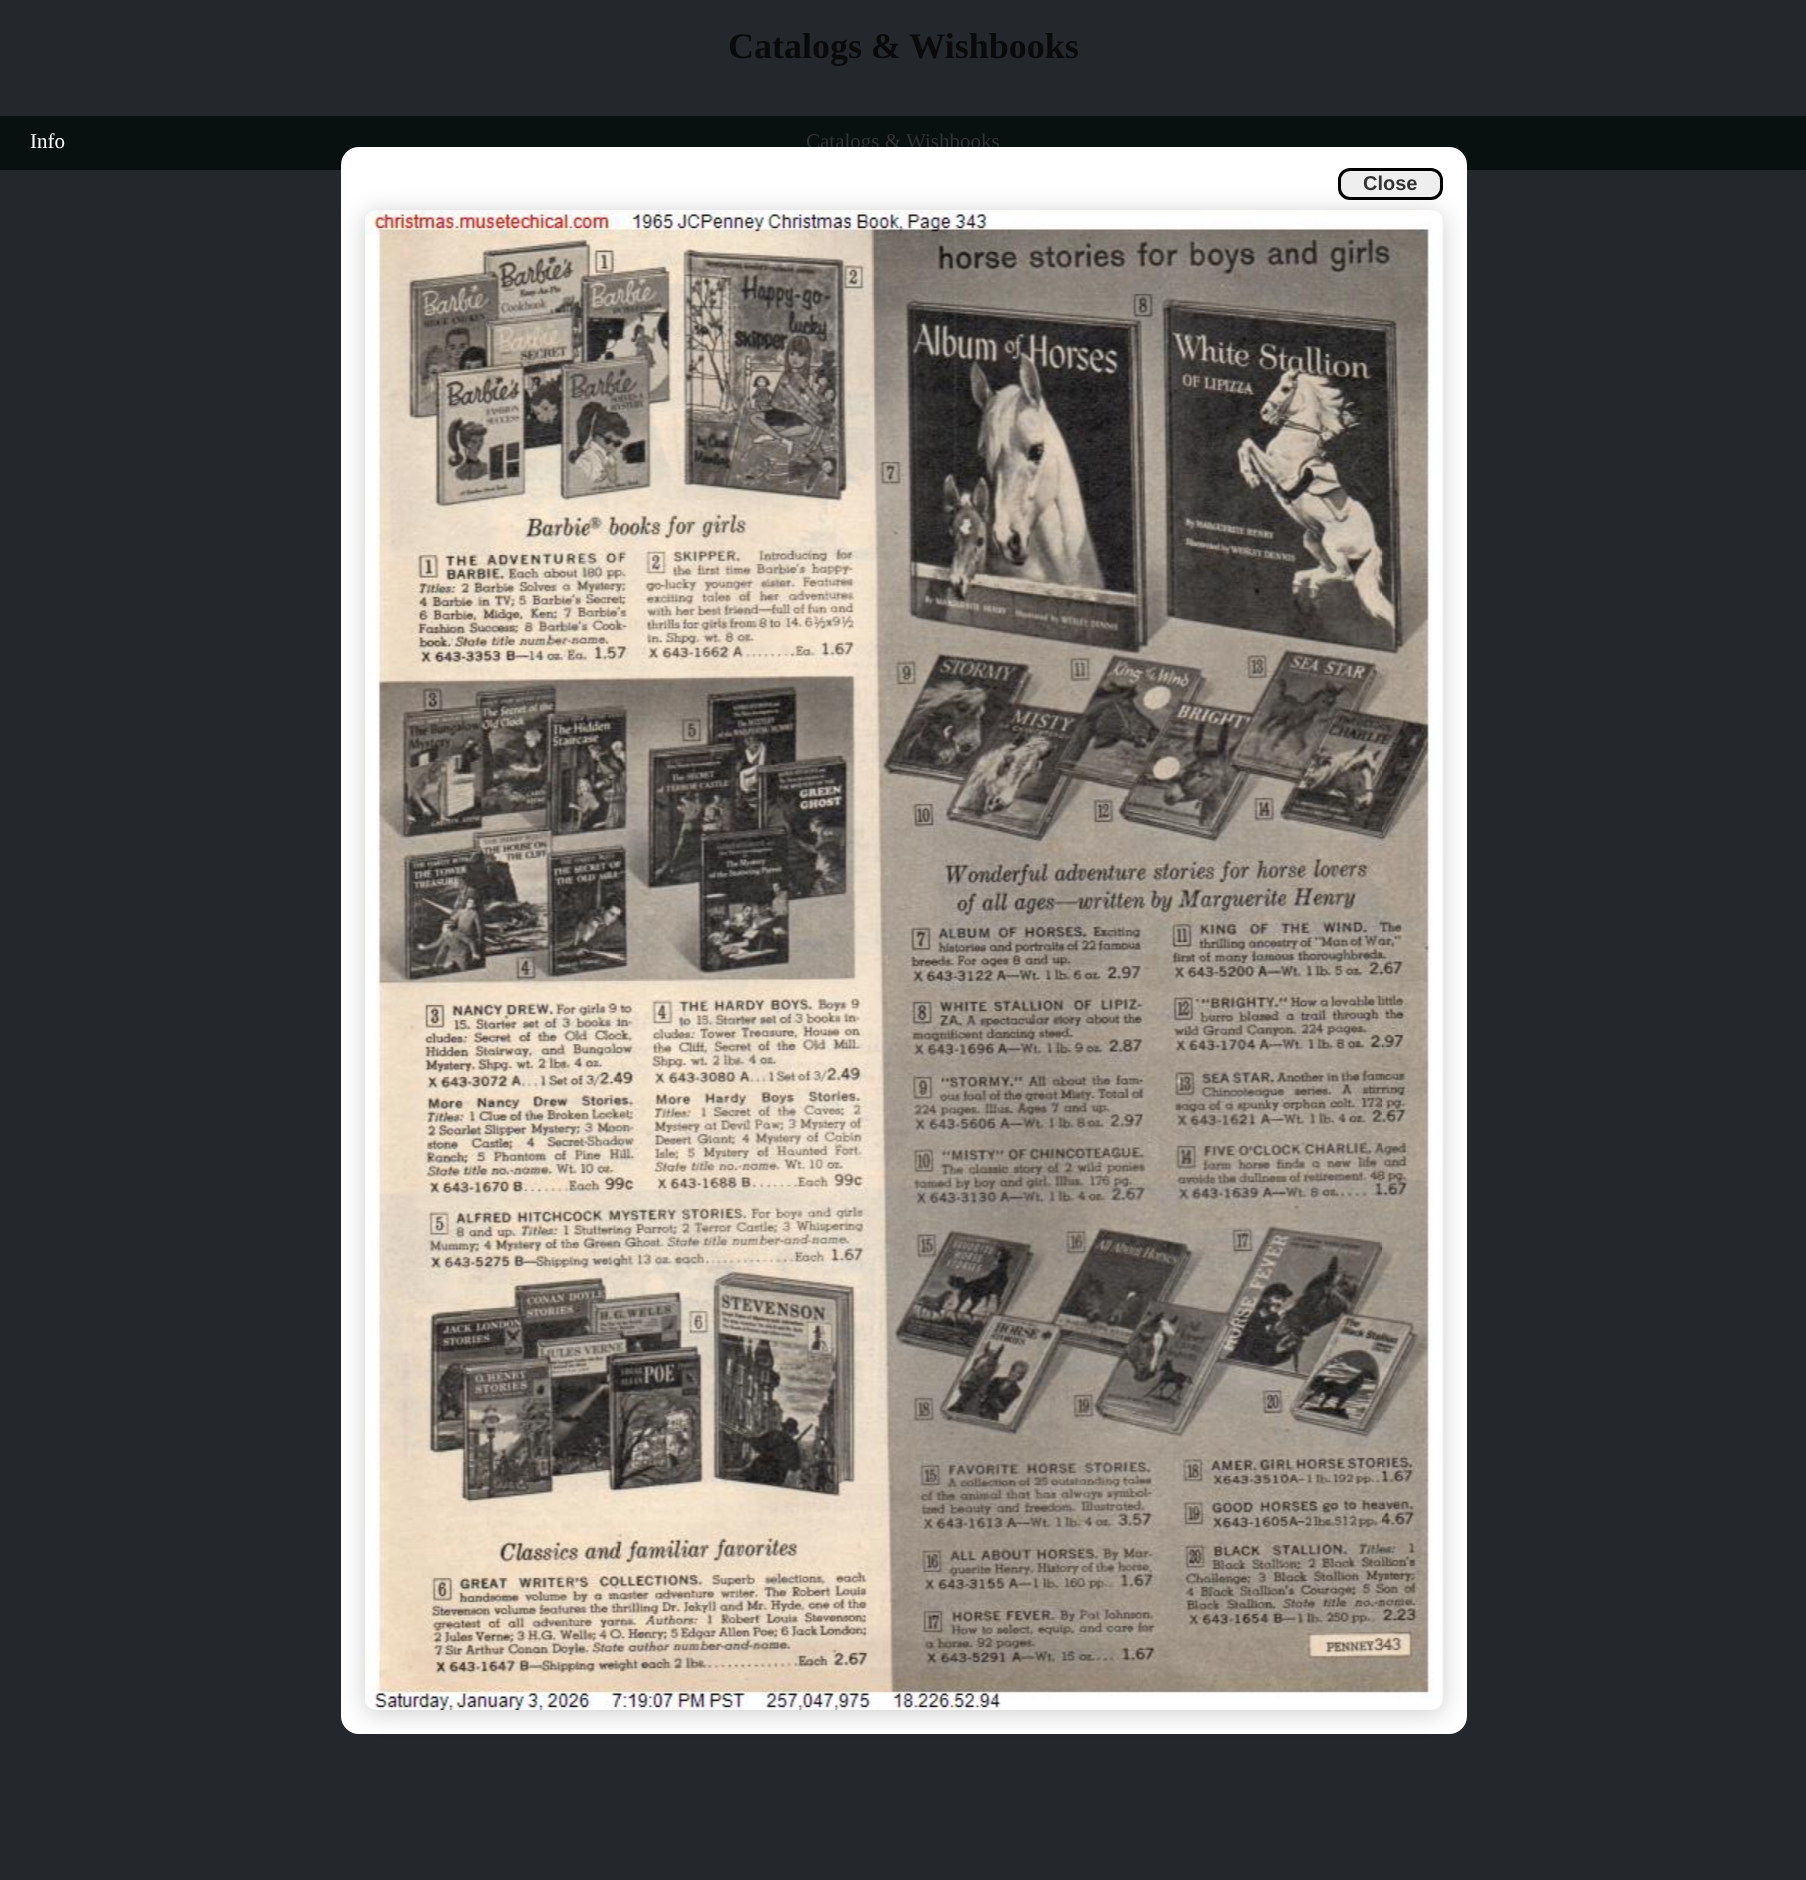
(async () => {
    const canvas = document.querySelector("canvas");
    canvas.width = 1806;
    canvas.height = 1880;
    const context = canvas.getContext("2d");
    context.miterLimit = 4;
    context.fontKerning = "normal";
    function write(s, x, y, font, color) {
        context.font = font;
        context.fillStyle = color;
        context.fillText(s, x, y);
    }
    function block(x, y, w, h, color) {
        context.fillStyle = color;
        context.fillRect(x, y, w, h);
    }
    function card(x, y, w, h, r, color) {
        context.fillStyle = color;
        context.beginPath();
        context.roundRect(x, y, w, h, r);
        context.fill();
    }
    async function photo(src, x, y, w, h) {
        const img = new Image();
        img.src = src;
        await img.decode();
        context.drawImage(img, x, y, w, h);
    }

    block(0, 0, 1806, 1880, "rgb(36, 40, 45)");
    block(0, 116, 1806, 54, "rgb(9, 16, 16)");
    write("Info", 30, 148, "21px Liberation Serif", "rgb(255, 255, 255)");
    write("Catalogs & Wishbooks", 806, 148, "21px Liberation Serif", "rgb(51, 51, 51)");
    write("Catalogs & Wishbooks", 728, 58, "bold 36px Liberation Serif", "rgb(10, 10, 10)");
    card(341, 147, 1126, 1587, 18, "rgb(255, 255, 255)");
    context.fillStyle = "rgba(0, 0, 0, 0.2)";
    context.filter = "blur(12px)";
    context.beginPath();
    context.roundRect(365, 213, 1078, 1500, 12);
    context.fill();
    context.filter = "none";
    context.fillStyle = "rgb(238, 238, 238)";
    context.beginPath();
    context.roundRect(1339.5, 169.5, 102, 29, 10.5);
    context.fill();
    context.strokeStyle = "rgb(0, 0, 0)";
    context.lineWidth = 3;
    context.stroke();
    write("Close", 1363, 190, "bold 20px Liberation Sans", "rgb(51, 51, 51)");
    await photo("media/1.png", 365, 210, 1079, 1500);
})();
